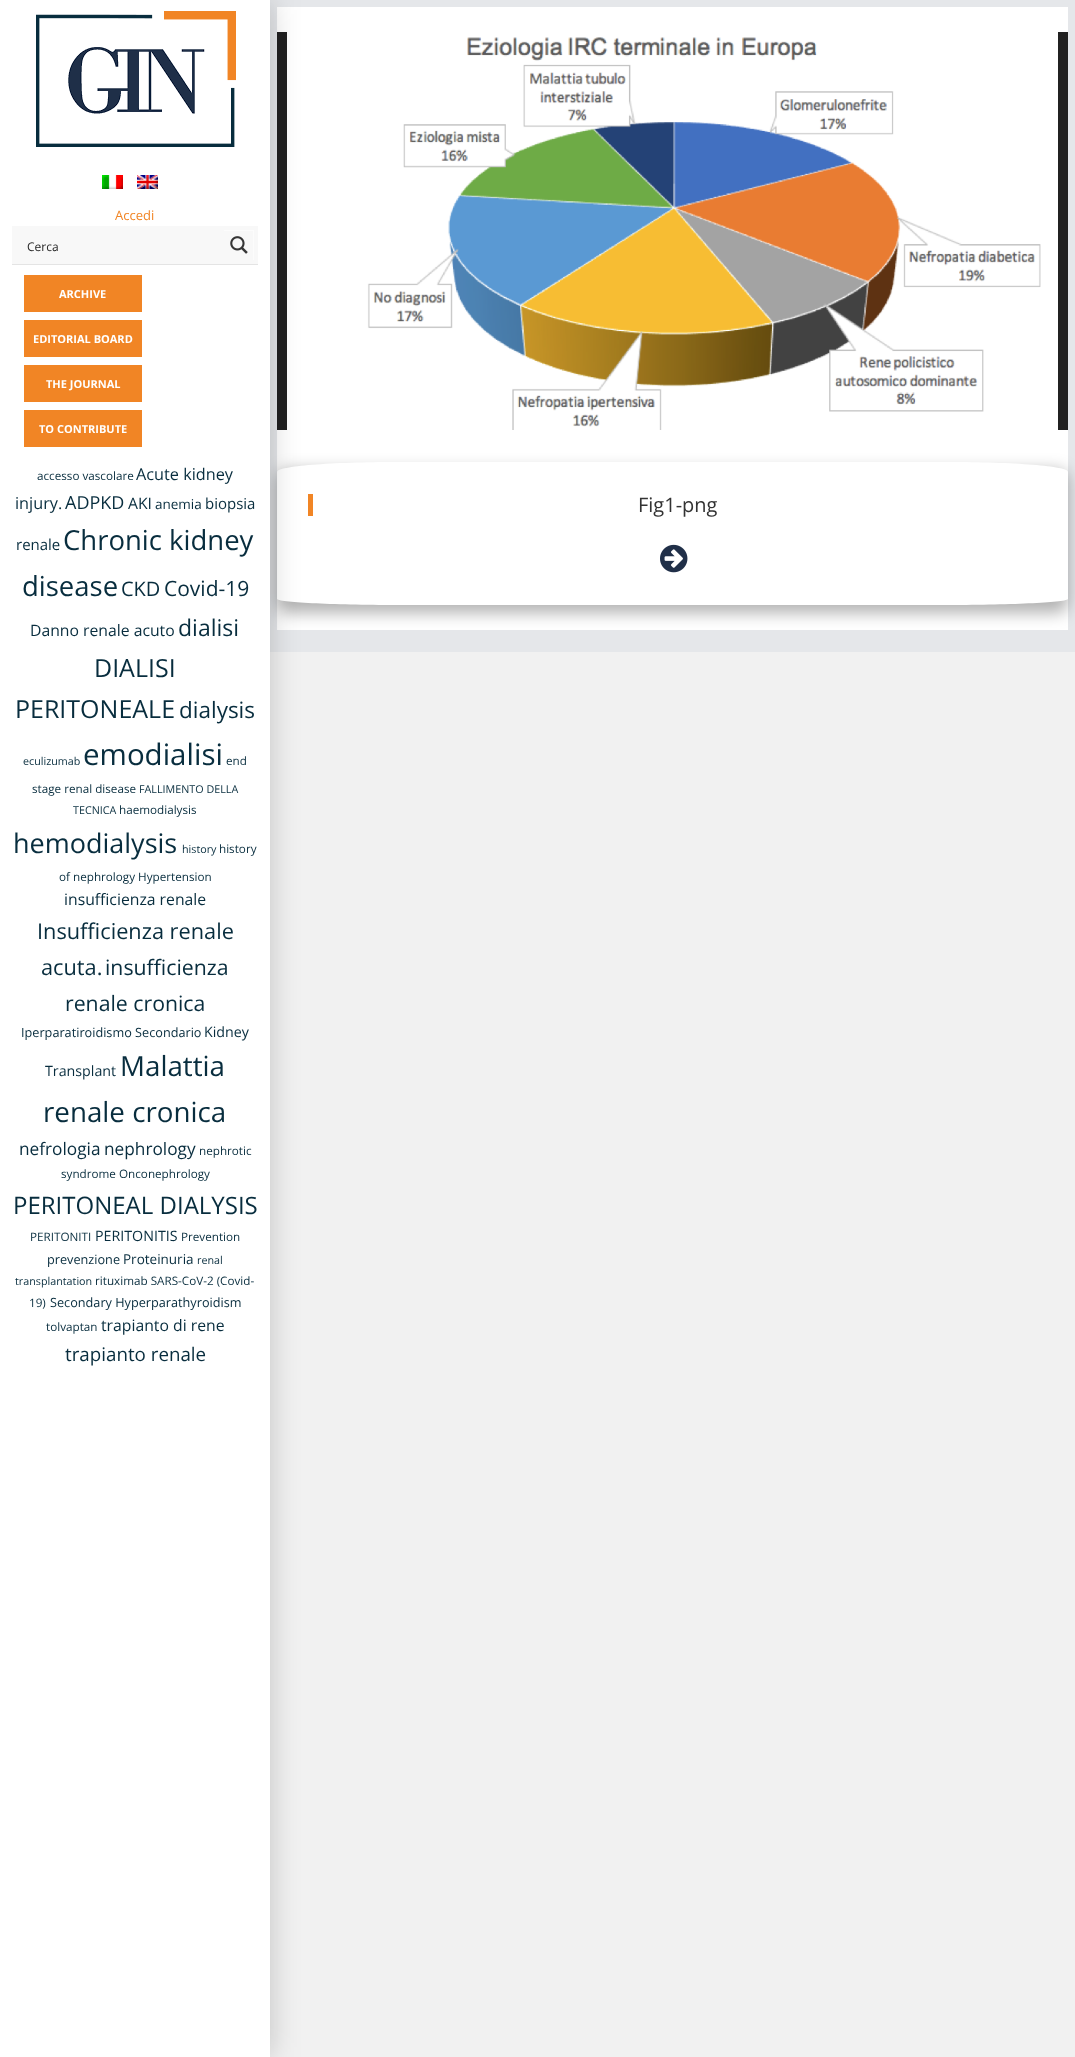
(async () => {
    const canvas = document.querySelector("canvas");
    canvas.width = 1075;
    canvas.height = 2057;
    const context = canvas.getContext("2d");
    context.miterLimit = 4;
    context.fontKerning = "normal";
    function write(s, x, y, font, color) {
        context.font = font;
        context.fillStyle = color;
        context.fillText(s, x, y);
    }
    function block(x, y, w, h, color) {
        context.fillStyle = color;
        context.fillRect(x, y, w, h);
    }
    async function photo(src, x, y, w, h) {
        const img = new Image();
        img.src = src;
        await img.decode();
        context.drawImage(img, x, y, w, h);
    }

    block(0, 0, 1075, 2057, "rgb(241, 241, 241)");
    block(270, 0, 805, 652, "rgb(229, 231, 234)");
    block(277, 7, 791, 623, "rgb(255, 255, 255)");
    block(277, 32, 791, 398, "rgb(33, 33, 33)");
    await photo("media/5.png", 287, 32, 771, 398);
    context.fillStyle = "rgba(0, 0, 0, 0.3)";
    context.filter = "blur(8px)";
    context.beginPath();
    context.roundRect(277, 470, 791, 143, 10);
    context.fill();
    context.filter = "none";
    context.fillStyle = "rgb(255, 255, 255)";
    context.beginPath();
    context.moveTo(397, 462);
    context.lineTo(948, 462);
    context.bezierCurveTo(1014, 462, 1068, 466, 1068, 472);
    context.lineTo(1068, 599);
    context.bezierCurveTo(1068, 602, 1014, 605, 948, 605);
    context.lineTo(397, 605);
    context.bezierCurveTo(331, 605, 277, 602, 277, 599);
    context.lineTo(277, 472);
    context.bezierCurveTo(277, 466, 331, 462, 397, 462);
    context.closePath();
    context.fill();
    block(308, 494, 5, 22, "rgb(241, 133, 37)");
    context.fillStyle = "rgba(0, 0, 0, 0.2)";
    context.filter = "blur(15px)";
    context.beginPath();
    context.rect(0, 0, 270, 2057);
    context.fill();
    context.filter = "none";
    block(0, 0, 270, 2057, "rgb(255, 255, 255)");
    await photo("media/1.png", 36, 11, 200, 136);
    await photo("media/2.png", 102, 175, 21, 14);
    await photo("media/3.png", 137, 175, 21, 14);
    write("Accedi", 115, 220, "13px Open Sans", "rgb(241, 133, 37)");
    block(12, 264, 246, 1, "rgb(228, 228, 228)");
    block(12, 226, 246, 38, "rgb(248, 248, 248)");
    write("Cerca", 27, 251, "12px Open Sans", "rgb(37, 37, 37)");
    context.save();
    context.beginPath();
    context.rect(224, 230, 30, 30);
    context.clip();
    context.fillStyle = "rgb(252, 252, 252)";
    context.beginPath();
    context.moveTo(125, 131);
    context.lineTo(353, 131);
    context.lineTo(353, 359);
    context.lineTo(125, 359);
    context.closePath();
    context.moveTo(223, 231);
    context.lineTo(253, 231);
    context.lineTo(253, 261);
    context.lineTo(223, 261);
    context.closePath();
    context.fill("evenodd");
    context.restore();
    await photo("media/4.png", 230, 236, 18, 18);
    block(24, 275, 118, 37, "rgb(241, 133, 37)");
    write("ARCHIVE", 59, 298, "bold 11px Open Sans", "rgb(255, 255, 255)");
    block(24, 320, 118, 37, "rgb(241, 133, 37)");
    write("EDITORIAL BOARD", 33, 343, "bold 11px Open Sans", "rgb(255, 255, 255)");
    block(24, 365, 118, 37, "rgb(241, 133, 37)");
    write("THE JOURNAL", 46, 388, "bold 11px Open Sans", "rgb(255, 255, 255)");
    block(24, 410, 118, 37, "rgb(241, 133, 37)");
    write("TO CONTRIBUTE", 39, 433, "bold 11px Open Sans", "rgb(255, 255, 255)");
    write("accesso vascolare", 37, 480, "11.7px Open Sans", "rgb(8, 45, 62)");
    write("Acute kidney", 136, 480, "16.25px Open Sans", "rgb(8, 45, 62)");
    write("injury.", 15, 509, "16.25px Open Sans", "rgb(8, 45, 62)");
    write("ADPKD", 65, 509, "18px Open Sans", "rgb(8, 45, 62)");
    write("AKI", 128, 509, "15.75px Open Sans", "rgb(8, 45, 62)");
    write("anemia", 155, 509, "13.5px Open Sans", "rgb(8, 45, 62)");
    write("biopsia", 205, 509, "15px Open Sans", "rgb(8, 45, 62)");
    write("renale", 16, 550, "15px Open Sans", "rgb(8, 45, 62)");
    write("Chronic kidney", 63, 550, "27.5px Open Sans", "rgb(8, 45, 62)");
    write("disease", 22, 596, "27.5px Open Sans", "rgb(8, 45, 62)");
    write("CKD", 121, 596, "20px Open Sans", "rgb(8, 45, 62)");
    write("Covid-19", 164, 596, "21px Open Sans", "rgb(8, 45, 62)");
    write("Danno renale acuto", 30, 636, "15.75px Open Sans", "rgb(8, 45, 62)");
    write("dialisi", 178, 636, "23px Open Sans", "rgb(8, 45, 62)");
    write("DIALISI", 94, 677, "25px Open Sans", "rgb(8, 45, 62)");
    write("PERITONEALE", 15, 718, "25px Open Sans", "rgb(8, 45, 62)");
    write("dialysis", 179, 718, "22.5px Open Sans", "rgb(8, 45, 62)");
    write("eculizumab", 23, 765, "10.75px Open Sans", "rgb(8, 45, 62)");
    write("emodialisi", 83, 765, "29.5px Open Sans", "rgb(8, 45, 62)");
    write("end", 226, 765, "11.7px Open Sans", "rgb(8, 45, 62)");
    write("stage renal disease", 32, 793, "11.7px Open Sans", "rgb(8, 45, 62)");
    write("FALLIMENTO DELLA", 139, 793, "10.75px Open Sans", "rgb(8, 45, 62)");
    write("TECNICA", 73, 814, "10.75px Open Sans", "rgb(8, 45, 62)");
    write("haemodialysis", 119, 814, "11.7px Open Sans", "rgb(8, 45, 62)");
    write("hemodialysis", 13, 853, "27px Open Sans", "rgb(8, 45, 62)");
    write("history", 182, 853, "10.75px Open Sans", "rgb(8, 45, 62)");
    write("history", 219, 853, "11.7px Open Sans", "rgb(8, 45, 62)");
    write("of nephrology Hypertension", 59, 881, "11.7px Open Sans", "rgb(8, 45, 62)");
    write("insufficienza renale", 64, 905, "15.75px Open Sans", "rgb(8, 45, 62)");
    write("Insufficienza renale", 37, 939, "21.75px Open Sans", "rgb(8, 45, 62)");
    write("acuta.", 41, 975, "21.75px Open Sans", "rgb(8, 45, 62)");
    write("insufficienza", 105, 975, "21.25px Open Sans", "rgb(8, 45, 62)");
    write("renale cronica", 65, 1011, "21.25px Open Sans", "rgb(8, 45, 62)");
    write("Iperparatiroidismo Secondario", 21, 1037, "12.7px Open Sans", "rgb(8, 45, 62)");
    write("Kidney", 204, 1037, "14.25px Open Sans", "rgb(8, 45, 62)");
    write("Transplant", 45, 1076, "14.25px Open Sans", "rgb(8, 45, 62)");
    write("Malattia", 120, 1076, "27.75px Open Sans", "rgb(8, 45, 62)");
    write("renale cronica", 43, 1122, "27.75px Open Sans", "rgb(8, 45, 62)");
    write("nefrologia", 19, 1155, "17.25px Open Sans", "rgb(8, 45, 62)");
    write("nephrology", 104, 1155, "17.25px Open Sans", "rgb(8, 45, 62)");
    write("nephrotic", 199, 1155, "11.7px Open Sans", "rgb(8, 45, 62)");
    write("syndrome", 61, 1178, "11.7px Open Sans", "rgb(8, 45, 62)");
    write("Onconephrology", 119, 1178, "11.7px Open Sans", "rgb(8, 45, 62)");
    write("PERITONEAL DIALYSIS", 13, 1214, "24px Open Sans", "rgb(8, 45, 62)");
    write("PERITONITI", 30, 1241, "11.7px Open Sans", "rgb(8, 45, 62)");
    write("PERITONITIS", 95, 1241, "14.25px Open Sans", "rgb(8, 45, 62)");
    write("Prevention", 181, 1241, "11.7px Open Sans", "rgb(8, 45, 62)");
    write("prevenzione", 47, 1264, "12.7px Open Sans", "rgb(8, 45, 62)");
    write("Proteinuria", 123, 1264, "13.5px Open Sans", "rgb(8, 45, 62)");
    write("renal", 197, 1264, "10.75px Open Sans", "rgb(8, 45, 62)");
    write("transplantation", 15, 1285, "10.75px Open Sans", "rgb(8, 45, 62)");
    write("rituximab SARS-CoV-2 (Covid-", 95, 1285, "11.7px Open Sans", "rgb(8, 45, 62)");
    write("19)", 29, 1307, "11.7px Open Sans", "rgb(8, 45, 62)");
    write("Secondary Hyperparathyroidism", 50, 1307, "12.7px Open Sans", "rgb(8, 45, 62)");
    write("tolvaptan", 46, 1331, "11.7px Open Sans", "rgb(8, 45, 62)");
    write("trapianto di rene", 101, 1331, "15.75px Open Sans", "rgb(8, 45, 62)");
    write("trapianto renale", 65, 1361, "18.75px Open Sans", "rgb(8, 45, 62)");
    write("Fig1-png", 638, 512, "20px Open Sans", "rgb(51, 51, 51)");
    await photo("media/6.png", 660, 544, 28, 29);
})();
